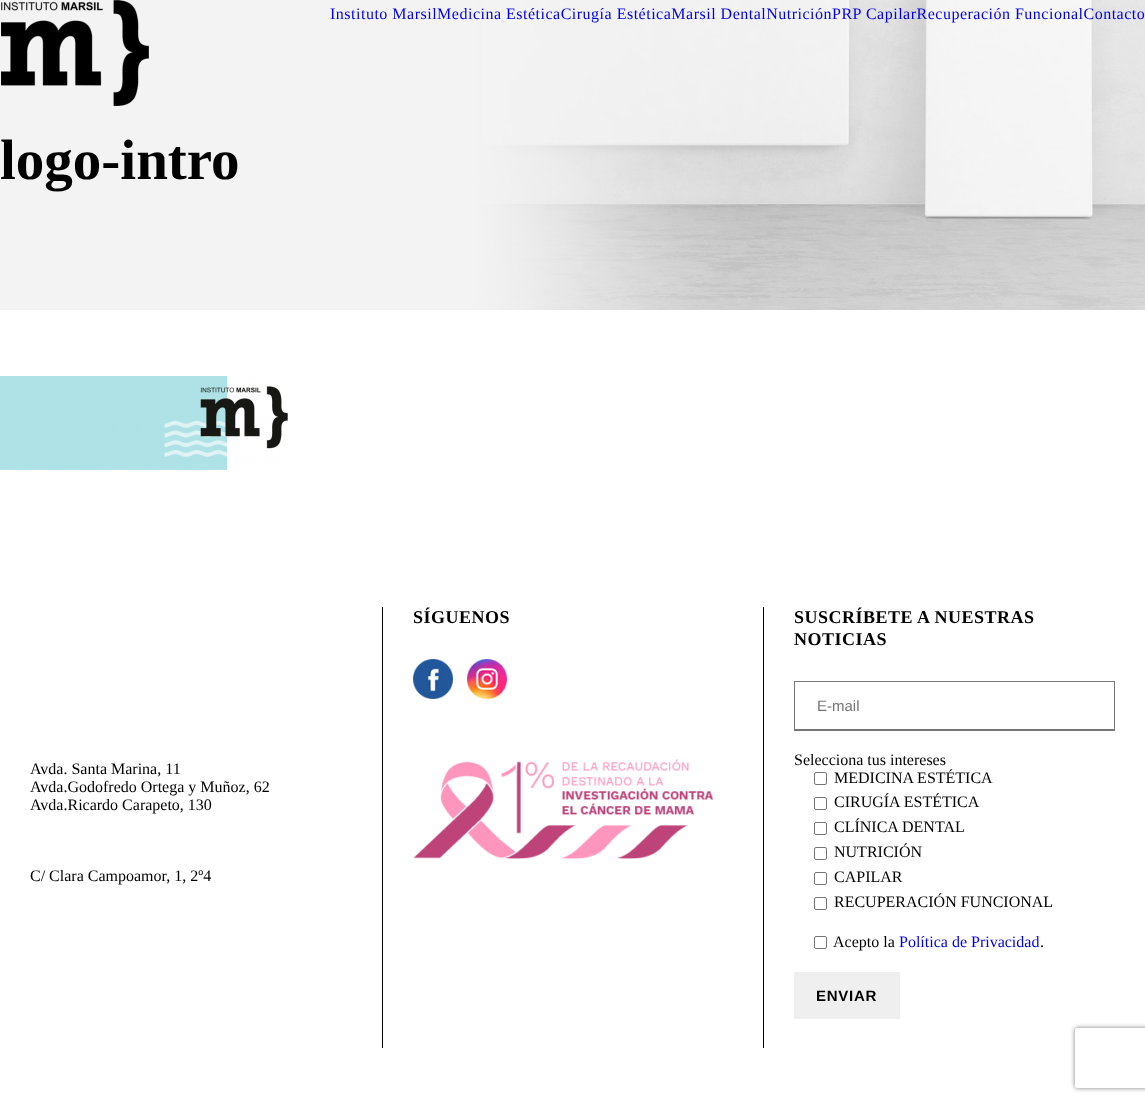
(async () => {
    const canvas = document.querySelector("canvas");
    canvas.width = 1145;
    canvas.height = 1102;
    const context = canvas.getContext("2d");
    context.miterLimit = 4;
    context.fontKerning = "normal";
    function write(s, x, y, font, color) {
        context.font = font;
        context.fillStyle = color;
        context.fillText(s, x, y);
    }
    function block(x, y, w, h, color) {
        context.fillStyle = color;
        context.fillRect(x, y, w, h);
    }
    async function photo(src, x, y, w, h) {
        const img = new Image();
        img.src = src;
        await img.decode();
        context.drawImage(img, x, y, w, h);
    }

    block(0, 0, 1145, 1102, "rgb(255, 255, 255)");
    await photo("media/2.png", 0, 0, 1145, 310);
    await photo("media/1.png", 1, 0, 148, 106);
    context.letterSpacing = "0.5px";
    write("Instituto MarsilMedicina EstéticaCirugía EstéticaMarsil DentalNutriciónPRP CapilarRecuperación FuncionalContacto", 330, 19, "16px Liberation Serif", "rgb(0, 0, 238)");
    context.letterSpacing = "0px";
    write("logo-intro", 0, 179, "bold 57px Liberation Serif", "rgb(0, 0, 0)");
    await photo("media/3.png", 0, 376, 288, 94);
    write("Avda. Santa Marina, 11", 30, 774, "16px Liberation Serif", "rgb(0, 0, 0)");
    write("Avda.Godofredo Ortega y Muñoz, 62", 30, 792, "16px Liberation Serif", "rgb(0, 0, 0)");
    write("Avda.Ricardo Carapeto, 130", 30, 810, "16px Liberation Serif", "rgb(0, 0, 0)");
    write("C/ Clara Campoamor, 1, 2º4", 30, 881, "16px Liberation Serif", "rgb(0, 0, 0)");
    block(382, 607, 1, 441, "rgb(0, 0, 0)");
    context.letterSpacing = "0.5px";
    write("SÍGUENOS", 413, 623, "bold 18px Liberation Serif", "rgb(0, 0, 0)");
    await photo("media/4.png", 413, 659, 40, 40);
    await photo("media/5.png", 467, 659, 40, 40);
    await photo("media/6.png", 413, 759, 300, 100);
    block(763, 607, 1, 441, "rgb(0, 0, 0)");
    write("SUSCRÍBETE A NUESTRAS", 794, 623, "bold 18px Liberation Serif", "rgb(0, 0, 0)");
    write("NOTICIAS", 794, 645, "bold 18px Liberation Serif", "rgb(0, 0, 0)");
    block(794, 681, 321, 1, "rgb(118, 118, 118)");
    block(1114, 681, 1, 50, "rgb(118, 118, 118)");
    block(794, 729, 321, 2, "rgb(118, 118, 118)");
    block(794, 681, 1, 50, "rgb(118, 118, 118)");
    context.letterSpacing = "0px";
    write("E-mail", 817, 711, "15px Liberation Sans", "rgb(117, 117, 117)");
    write("Selecciona tus intereses", 794, 765, "16px Liberation Serif", "rgb(0, 0, 0)");
    context.beginPath();
    context.roundRect(814.5, 772.5, 12, 12, 1.5);
    context.strokeStyle = "rgb(118, 118, 118)";
    context.stroke();
    write("MEDICINA ESTÉTICA", 834, 783, "16px Liberation Serif", "rgb(0, 0, 0)");
    context.beginPath();
    context.roundRect(814.5, 797.5, 12, 12, 1.5);
    context.stroke();
    write("CIRUGÍA ESTÉTICA", 834, 807, "16px Liberation Serif", "rgb(0, 0, 0)");
    context.beginPath();
    context.roundRect(814.5, 822.5, 12, 12, 1.5);
    context.stroke();
    write("CLÍNICA DENTAL", 834, 832, "16px Liberation Serif", "rgb(0, 0, 0)");
    context.beginPath();
    context.roundRect(814.5, 847.5, 12, 12, 1.5);
    context.stroke();
    write("NUTRICIÓN", 834, 857, "16px Liberation Serif", "rgb(0, 0, 0)");
    context.beginPath();
    context.roundRect(814.5, 872.5, 12, 12, 1.5);
    context.stroke();
    write("CAPILAR", 834, 882, "16px Liberation Serif", "rgb(0, 0, 0)");
    context.beginPath();
    context.roundRect(814.5, 897.5, 12, 12, 1.5);
    context.stroke();
    write("RECUPERACIÓN FUNCIONAL", 834, 907, "16px Liberation Serif", "rgb(0, 0, 0)");
    context.beginPath();
    context.roundRect(814.5, 936.5, 12, 12, 1.5);
    context.stroke();
    write("Acepto la", 833, 947, "16px Liberation Serif", "rgb(0, 0, 0)");
    write("Política de Privacidad", 899, 947, "16px Liberation Serif", "rgb(0, 0, 238)");
    write(".", 1040, 947, "16px Liberation Serif", "rgb(0, 0, 0)");
    block(794, 972, 106, 47, "rgb(239, 239, 239)");
    context.letterSpacing = "0.75px";
    write("ENVIAR", 816, 1001, "bold 15px Liberation Sans", "rgb(0, 0, 0)");
    context.save();
    context.beginPath();
    context.moveTo(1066, 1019);
    context.lineTo(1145, 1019);
    context.lineTo(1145, 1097);
    context.lineTo(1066, 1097);
    context.closePath();
    context.moveTo(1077, 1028);
    context.lineTo(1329, 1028);
    context.bezierCurveTo(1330, 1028, 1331, 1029, 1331, 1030);
    context.lineTo(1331, 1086);
    context.bezierCurveTo(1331, 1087, 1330, 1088, 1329, 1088);
    context.lineTo(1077, 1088);
    context.bezierCurveTo(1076, 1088, 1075, 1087, 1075, 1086);
    context.lineTo(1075, 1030);
    context.bezierCurveTo(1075, 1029, 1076, 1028, 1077, 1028);
    context.closePath();
    context.clip("evenodd");
    context.fillStyle = "rgb(128, 128, 128)";
    context.filter = "blur(2.5px)";
    context.beginPath();
    context.roundRect(1075, 1028, 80, 60, 2);
    context.fill();
    context.filter = "none";
    context.restore();
})();
